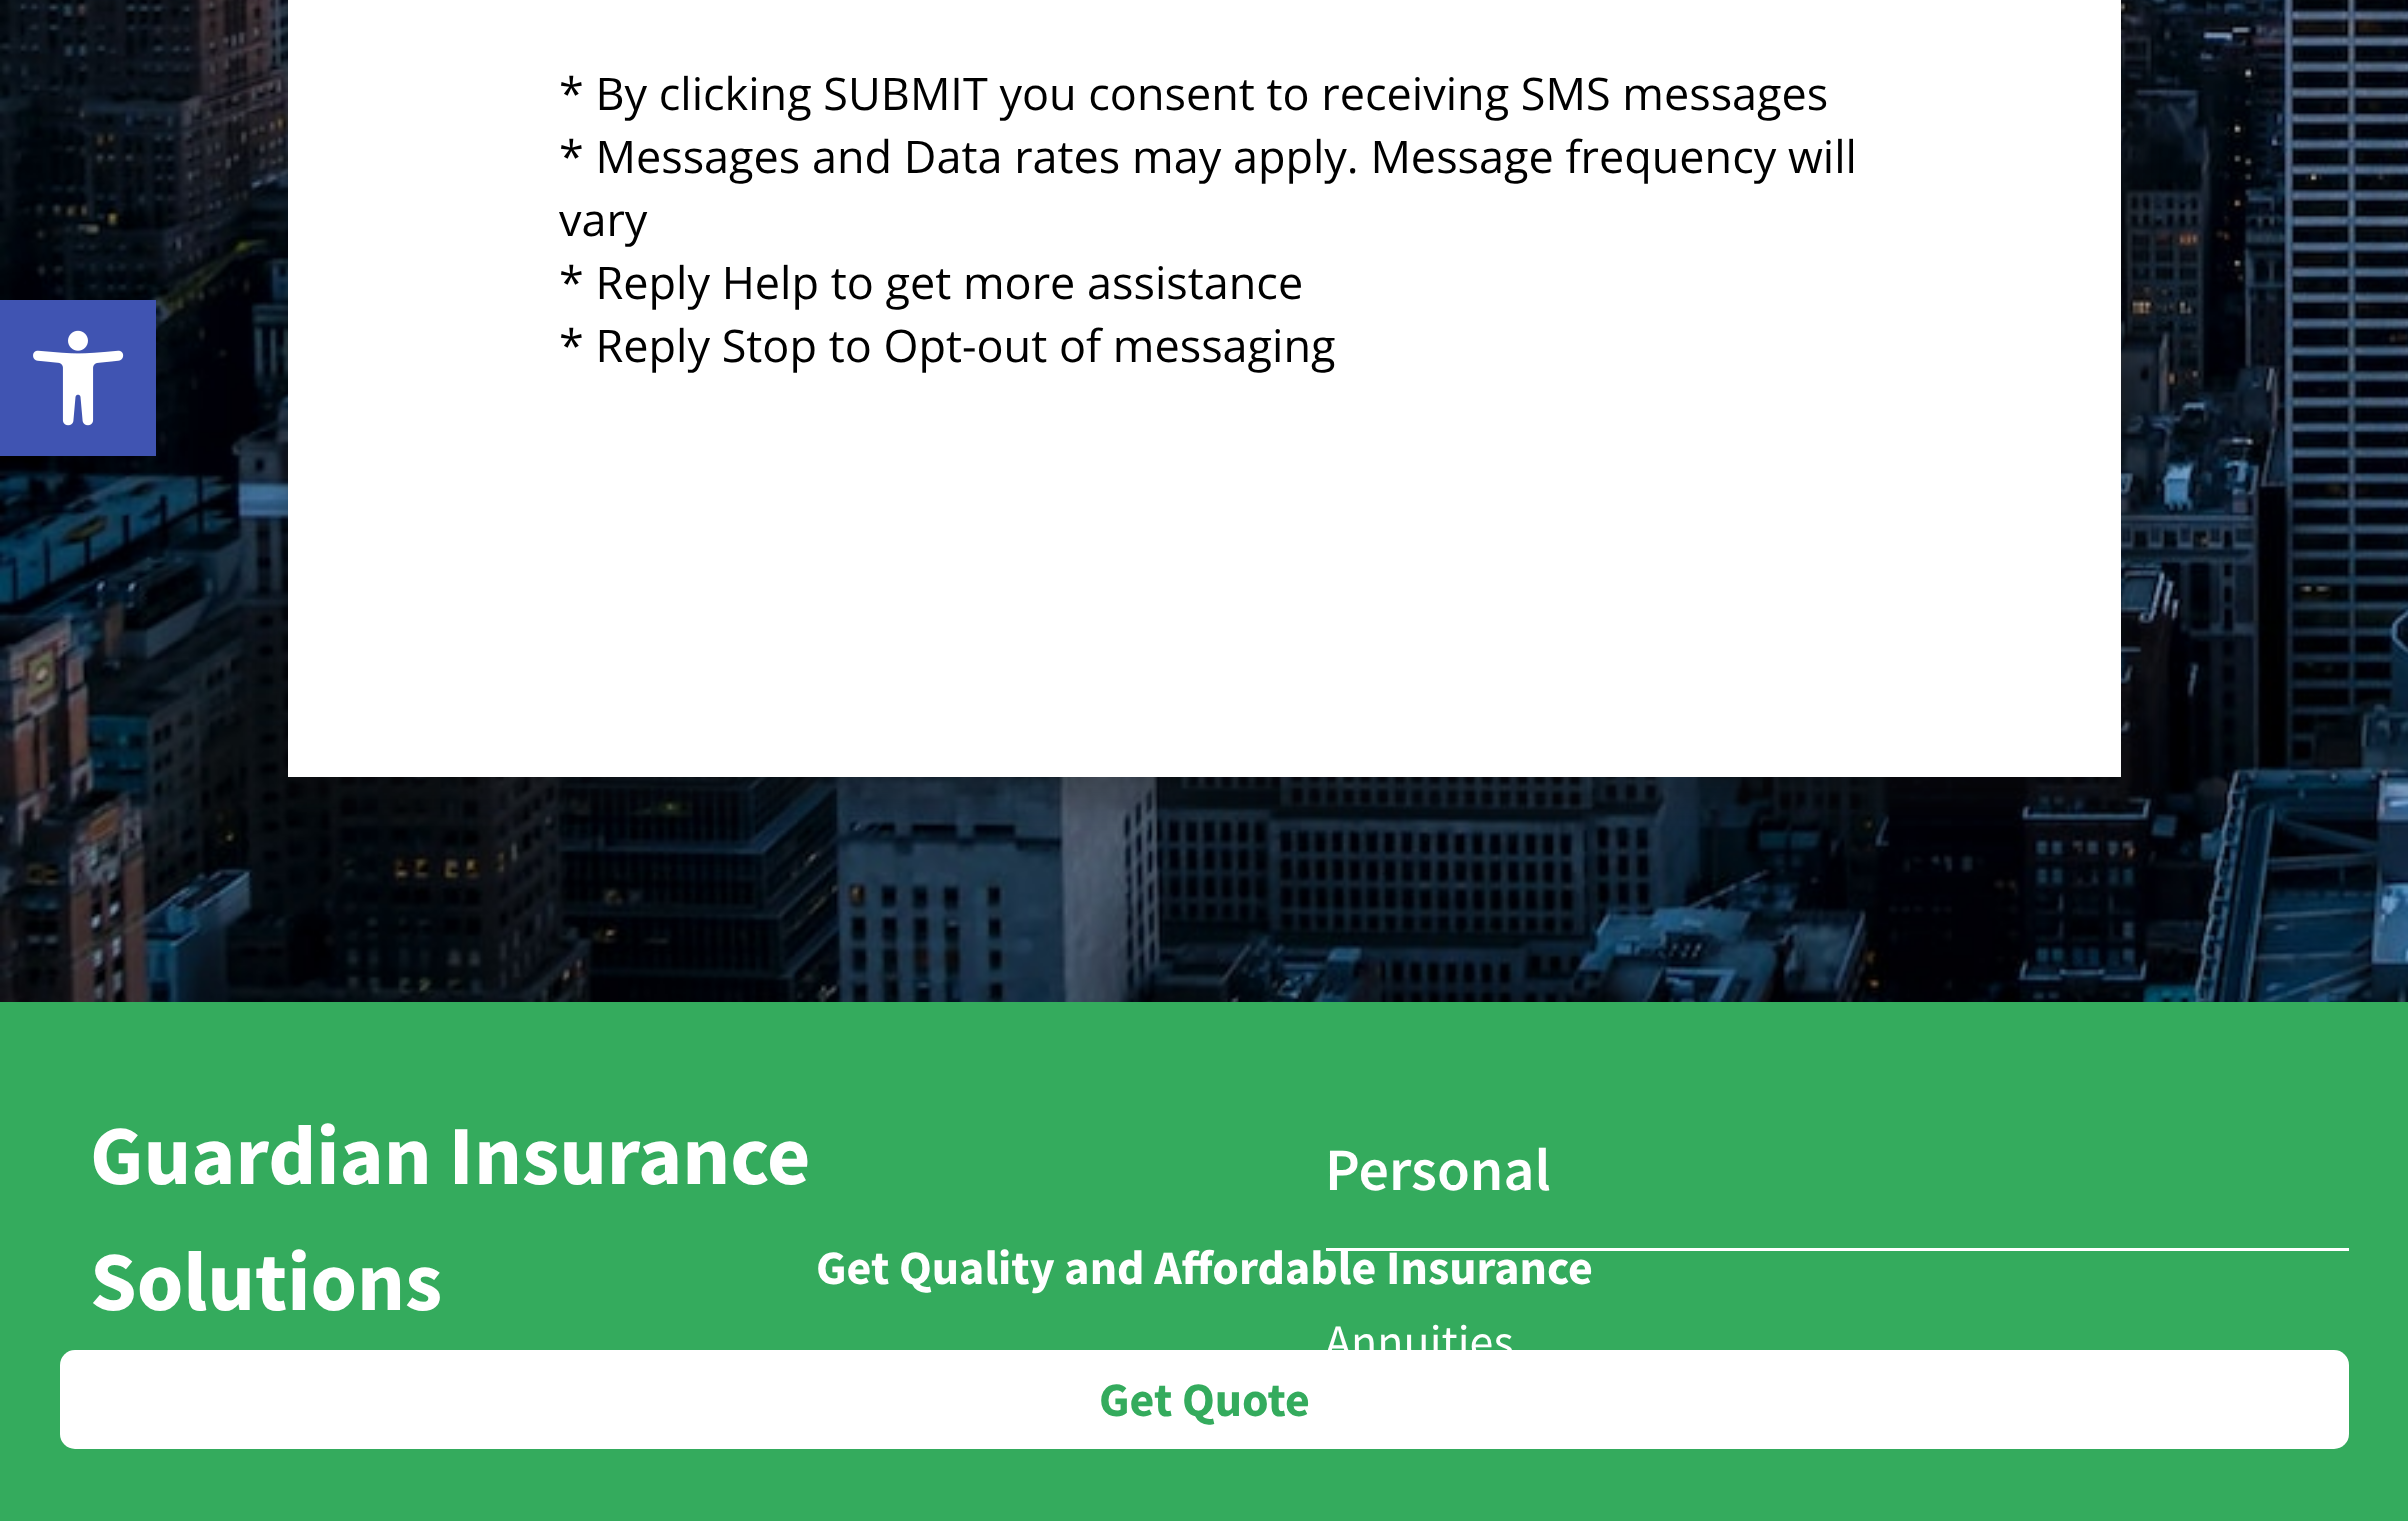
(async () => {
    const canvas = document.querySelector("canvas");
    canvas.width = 2408;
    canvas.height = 1521;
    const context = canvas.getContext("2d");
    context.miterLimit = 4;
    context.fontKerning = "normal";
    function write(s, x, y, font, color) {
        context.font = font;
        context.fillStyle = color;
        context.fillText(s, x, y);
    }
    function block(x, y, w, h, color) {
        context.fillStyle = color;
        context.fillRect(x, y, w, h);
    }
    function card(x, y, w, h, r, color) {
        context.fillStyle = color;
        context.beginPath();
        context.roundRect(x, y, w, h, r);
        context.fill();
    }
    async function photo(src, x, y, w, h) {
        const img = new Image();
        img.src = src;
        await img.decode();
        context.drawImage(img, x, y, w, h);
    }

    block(0, 0, 2408, 1521, "rgb(255, 255, 255)");
    await photo("media/2.png", 0, 0, 2408, 1002);
    context.fillStyle = "rgba(0, 0, 0, 0.1)";
    context.filter = "blur(15px)";
    context.beginPath();
    context.rect(0, 300, 156, 156);
    context.fill();
    context.filter = "none";
    block(0, 300, 156, 156, "rgb(64, 84, 178)");
    await photo("media/1.png", 33, 330, 91, 96);
    context.fillStyle = "rgba(16, 16, 16, 0.3)";
    context.filter = "blur(15px)";
    context.beginPath();
    context.rect(288, -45, 1863, 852);
    context.fill();
    context.filter = "none";
    block(288, 0, 1833, 777, "rgb(255, 255, 255)");
    write("* By clicking SUBMIT you consent to receiving SMS messages", 559, 110, "45px Open Sans", "rgb(0, 0, 0)");
    write("* Messages and Data rates may apply. Message frequency will", 559, 173, "45px Open Sans", "rgb(0, 0, 0)");
    write("vary", 559, 236, "45px Open Sans", "rgb(0, 0, 0)");
    write("* Reply Help to get more assistance", 559, 299, "45px Open Sans", "rgb(0, 0, 0)");
    write("* Reply Stop to Opt-out of messaging", 559, 362, "45px Open Sans", "rgb(0, 0, 0)");
    block(0, 1002, 2408, 354, "rgb(52, 171, 93)");
    write("Guardian Insurance", 90, 1184, "bold 84px Source Sans Pro", "rgb(255, 255, 255)");
    write("Solutions", 90, 1310, "bold 84px Source Sans Pro", "rgb(255, 255, 255)");
    block(1326, 1248, 1023, 3, "rgb(255, 255, 255)");
    write("Personal", 1325, 1190, "600 60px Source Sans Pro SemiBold", "rgb(255, 255, 255)");
    write("Annuities", 1325, 1358, "48px Source Sans Pro", "rgb(255, 255, 255)");
    block(0, 1356, 2408, 165, "rgb(52, 171, 93)");
    write("Get Quality and Affordable Insurance", 816, 1284, "bold 48px Source Sans Pro", "rgb(255, 255, 255)");
    card(60, 1350, 2289, 99, 15, "rgb(255, 255, 255)");
    write("Get Quote", 1099, 1416, "bold 48px Source Sans Pro", "rgb(52, 171, 93)");
})();
